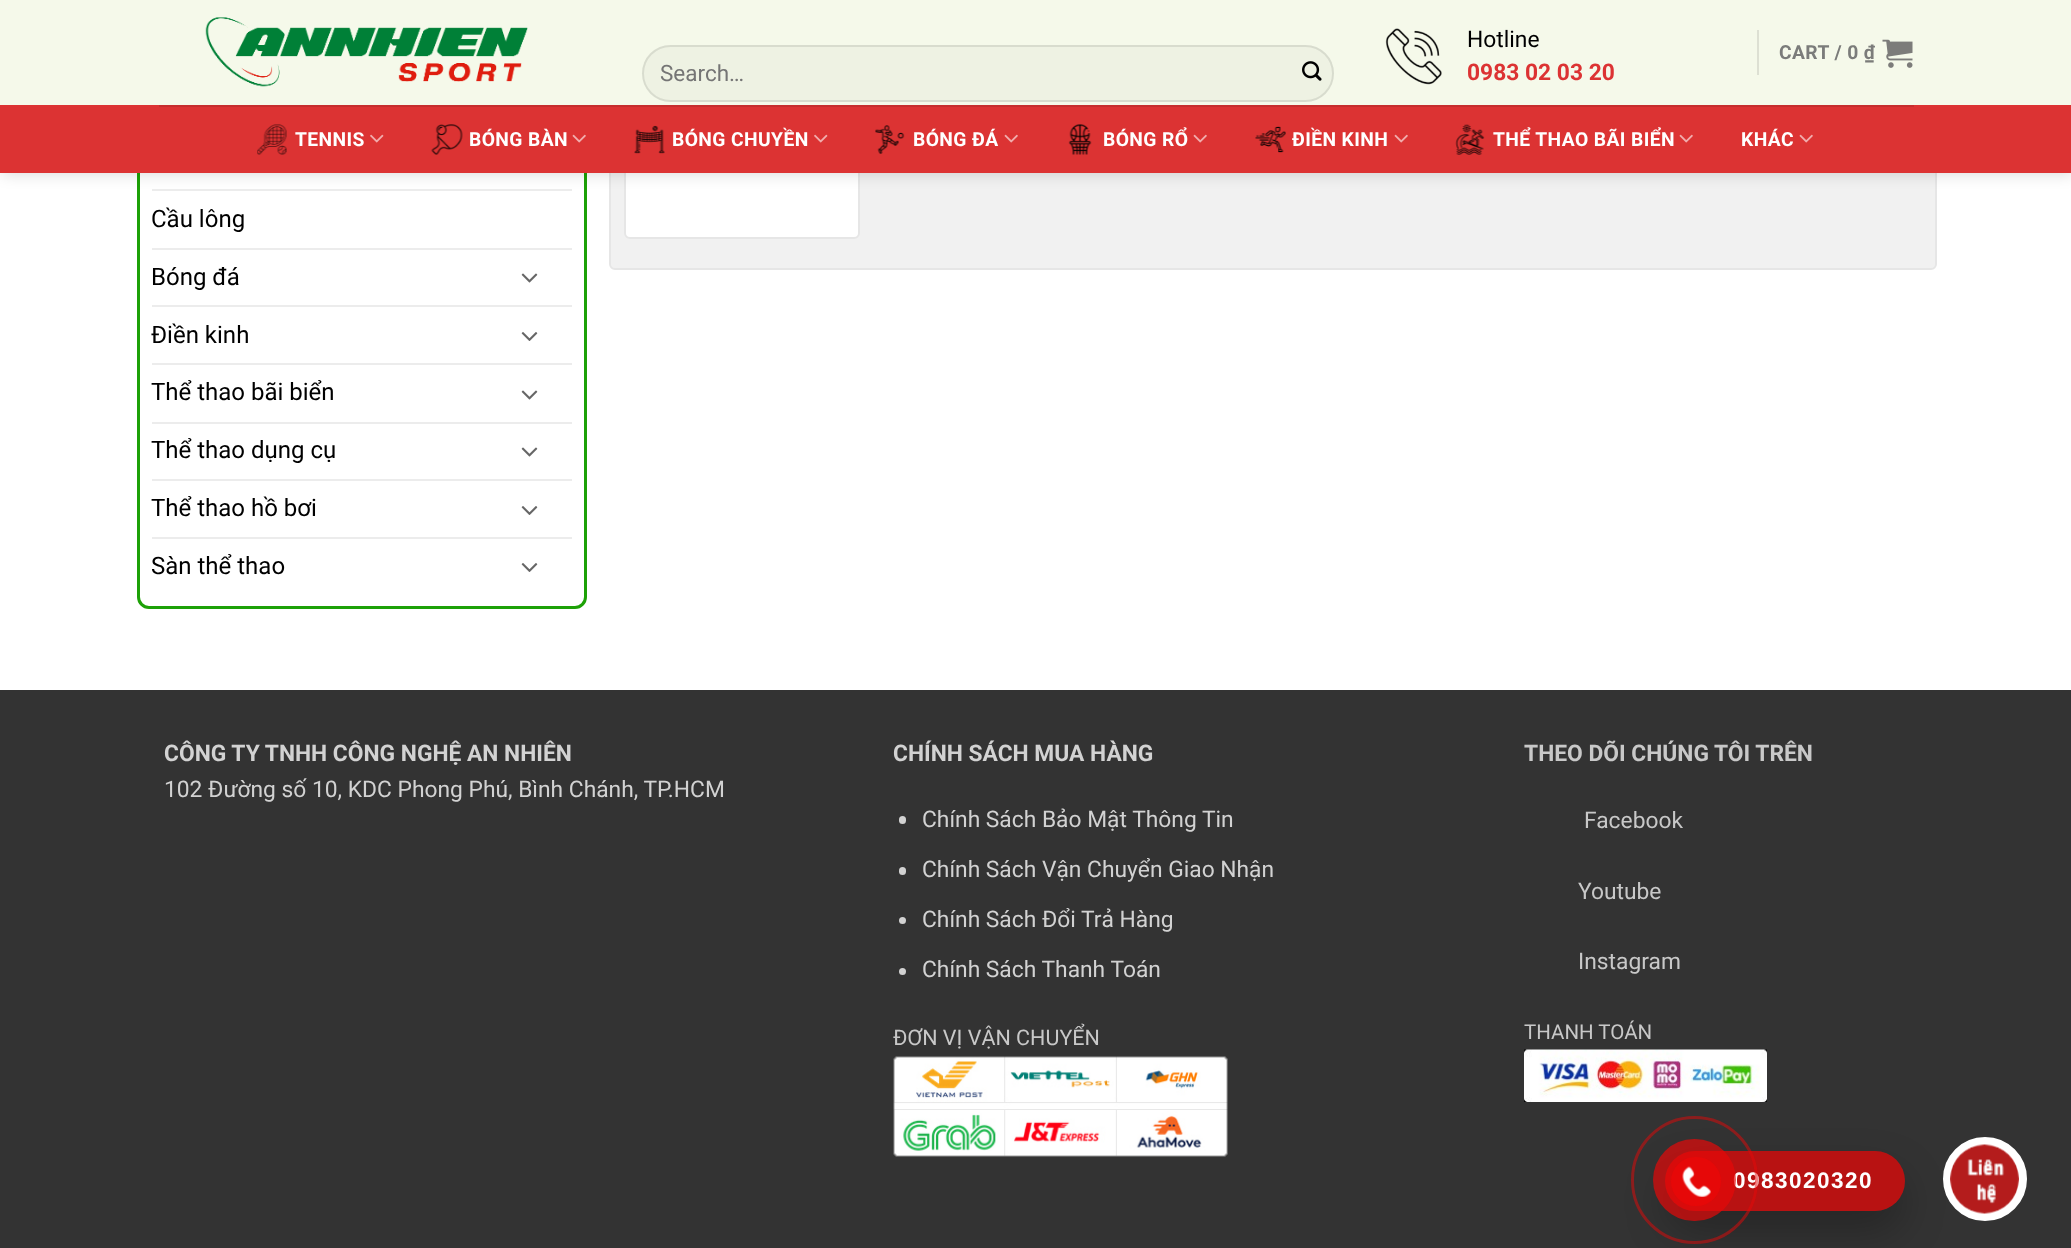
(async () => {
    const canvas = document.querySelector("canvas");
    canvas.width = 2071;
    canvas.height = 1248;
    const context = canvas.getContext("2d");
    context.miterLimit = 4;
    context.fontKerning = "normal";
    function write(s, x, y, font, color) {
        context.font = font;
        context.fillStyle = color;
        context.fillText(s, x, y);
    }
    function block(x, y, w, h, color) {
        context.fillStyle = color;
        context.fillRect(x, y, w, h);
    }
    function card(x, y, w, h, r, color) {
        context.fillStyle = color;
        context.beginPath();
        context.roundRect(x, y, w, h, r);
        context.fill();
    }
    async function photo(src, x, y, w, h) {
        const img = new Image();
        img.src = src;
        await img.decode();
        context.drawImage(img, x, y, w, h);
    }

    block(0, 0, 2071, 1248, "rgb(255, 255, 255)");
    context.fillStyle = "rgb(241, 241, 241)";
    context.beginPath();
    context.roundRect(610, -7, 1326, 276, 5);
    context.fill();
    context.strokeStyle = "rgb(230, 230, 230)";
    context.lineWidth = 2;
    context.stroke();
    context.fillStyle = "rgb(255, 255, 255)";
    context.beginPath();
    context.roundRect(625, -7, 234, 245, 5);
    context.fill();
    context.stroke();
    context.beginPath();
    context.roundRect(138.5, -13.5, 447, 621, 10.5);
    context.strokeStyle = "rgb(29, 161, 7)";
    context.lineWidth = 3;
    context.stroke();
    block(152, 189, 420, 2, "rgb(236, 236, 236)");
    context.fillStyle = "rgba(0, 0, 0, 0.15)";
    context.filter = "blur(7.5px)";
    context.beginPath();
    context.rect(2, 2, 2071, 172);
    context.fill();
    context.filter = "none";
    block(0, 0, 2071, 105, "rgb(245, 249, 234)");
    await photo("media/1.png", 205, 17, 323, 70);
    card(642, 45, 692, 57, 28.5, "rgb(238, 242, 227)");
    context.beginPath();
    context.roundRect(643, 46, 690, 55, 27.5);
    context.strokeStyle = "rgba(0, 0, 0, 0.09)";
    context.lineWidth = 2;
    context.stroke();
    write("Search…", 660, 81, "22.5px Roboto", "rgb(117, 117, 117)");
    await photo("media/2.png", 1302, 61, 20, 20);
    await photo("media/3.png", 1385, 28, 57, 57);
    write("Hotline", 1467, 47, "22.8px Roboto", "rgb(0, 0, 0)");
    write("0983 02 03 20", 1467, 80, "bold 22.8px Roboto", "rgb(220, 51, 51)");
    block(1757, 30, 2, 45, "rgb(221, 224, 211)");
    context.letterSpacing = "0.4px";
    write("CART / 0 ₫", 1779, 59, "bold 19.25px Roboto", "rgb(123, 124, 122)");
    await photo("media/4.png", 1882, 39, 31, 29);
    block(0, 105, 2071, 68, "rgb(220, 51, 51)");
    block(159, 105, 1755, 2, "rgb(198, 46, 46)");
    await photo("media/5.png", 257, 124, 30, 31);
    write("TENNIS", 295, 146, "bold 19.25px Roboto", "rgb(255, 255, 255)");
    await photo("media/6.png", 370, 134, 14, 9);
    await photo("media/7.png", 431, 124, 32, 31);
    write("BÓNG BÀN", 469, 146, "bold 19.25px Roboto", "rgb(255, 255, 255)");
    await photo("media/8.png", 572, 134, 14, 9);
    await photo("media/9.png", 634, 125, 31, 29);
    write("BÓNG CHUYỀN", 672, 146, "bold 19.25px Roboto", "rgb(255, 255, 255)");
    await photo("media/6.png", 814, 134, 14, 9);
    await photo("media/10.png", 875, 125, 30, 29);
    write("BÓNG ĐÁ", 913, 146, "bold 19.25px Roboto", "rgb(255, 255, 255)");
    await photo("media/8.png", 1004, 134, 14, 9);
    await photo("media/11.png", 1068, 124, 24, 31);
    write("BÓNG RỔ", 1103, 146, "bold 19.25px Roboto", "rgb(255, 255, 255)");
    await photo("media/8.png", 1193, 134, 14, 9);
    await photo("media/12.png", 1255, 126, 31, 27);
    write("ĐIỀN KINH", 1292, 146, "bold 19.25px Roboto", "rgb(255, 255, 255)");
    await photo("media/8.png", 1394, 134, 14, 9);
    await photo("media/13.png", 1455, 124, 30, 31);
    write("THỂ THAO BÃI BIỂN", 1493, 146, "bold 19.25px Roboto", "rgb(255, 255, 255)");
    await photo("media/8.png", 1679, 134, 14, 9);
    write("KHÁC", 1741, 146, "bold 19.25px Roboto", "rgb(255, 255, 255)");
    await photo("media/8.png", 1799, 134, 14, 9);
    context.letterSpacing = "0px";
    write("Cầu lông", 151, 227, "24px Roboto", "rgb(0, 0, 0)");
    block(152, 248, 420, 2, "rgb(236, 236, 236)");
    write("Bóng đá", 151, 285, "24px Roboto", "rgb(0, 0, 0)");
    await photo("media/14.png", 521, 273, 17, 10);
    block(152, 305, 420, 2, "rgb(236, 236, 236)");
    write("Điền kinh", 151, 343, "24px Roboto", "rgb(0, 0, 0)");
    await photo("media/15.png", 521, 332, 17, 9);
    block(152, 363, 420, 2, "rgb(236, 236, 236)");
    write("Thể thao bãi biển", 151, 400, "24px Roboto", "rgb(0, 0, 0)");
    await photo("media/14.png", 521, 390, 17, 10);
    block(152, 422, 420, 2, "rgb(236, 236, 236)");
    write("Thể thao dụng cụ", 151, 458, "24px Roboto", "rgb(0, 0, 0)");
    await photo("media/14.png", 521, 447, 17, 10);
    block(152, 479, 420, 2, "rgb(236, 236, 236)");
    write("Thể thao hồ bơi", 151, 516, "24px Roboto", "rgb(0, 0, 0)");
    await photo("media/15.png", 521, 506, 17, 9);
    block(152, 537, 420, 2, "rgb(236, 236, 236)");
    write("Sàn thể thao", 151, 574, "24px Roboto", "rgb(0, 0, 0)");
    await photo("media/15.png", 521, 563, 17, 9);
    block(0, 690, 2071, 558, "rgb(51, 51, 51)");
    write("CÔNG TY TNHH CÔNG NGHỆ AN NHIÊN", 164, 761, "bold 22.8px Roboto", "rgb(210, 210, 210)");
    write("102 Đường số 10, KDC Phong Phú, Bình Chánh, TP.HCM", 164, 797, "22.8px Roboto", "rgb(210, 210, 210)");
    write("CHÍNH SÁCH MUA HÀNG", 893, 761, "bold 22.8px Roboto", "rgb(210, 210, 210)");
    card(899, 816, 7, 8, 3.5, "rgb(210, 210, 210)");
    write("Chính Sách Bảo Mật Thông Tin", 922, 827, "22.8px Roboto", "rgb(210, 210, 210)");
    card(899, 867, 7, 8, 3.5, "rgb(210, 210, 210)");
    write("Chính Sách Vận Chuyển Giao Nhận", 922, 877, "22.8px Roboto", "rgb(210, 210, 210)");
    context.beginPath();
    context.arc(902.5, 920.5, 3.5, 0, Math.PI * 2);
    context.fill();
    write("Chính Sách Đổi Trả Hàng", 922, 927, "22.8px Roboto", "rgb(210, 210, 210)");
    context.beginPath();
    context.arc(902.5, 971.5, 3.5, 0, Math.PI * 2);
    context.fill();
    write("Chính Sách Thanh Toán", 922, 977, "22.8px Roboto", "rgb(210, 210, 210)");
    write("ĐƠN VỊ VẬN CHUYỂN", 893, 1045, "21.5px Roboto", "rgb(200, 200, 200)");
    await photo("media/16.png", 893, 1056, 335, 101);
    write("THEO DÕI CHÚNG TÔI TRÊN", 1524, 761, "bold 22.8px Roboto", "rgb(200, 200, 200)");
    write("Facebook", 1584, 828, "22.8px Roboto", "rgb(200, 200, 200)");
    write("Youtube", 1578, 899, "22.8px Roboto", "rgb(200, 200, 200)");
    write("Instagram", 1578, 969, "22.8px Roboto", "rgb(200, 200, 200)");
    write("THANH TOÁN", 1524, 1039, "20.5px Roboto", "rgb(200, 200, 200)");
    await photo("media/17.png", 1524, 1049, 243, 53);
    context.save();
    context.beginPath();
    context.moveTo(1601, 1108);
    context.lineTo(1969, 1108);
    context.lineTo(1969, 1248);
    context.lineTo(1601, 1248);
    context.closePath();
    context.moveTo(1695, 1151);
    context.lineTo(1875, 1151);
    context.bezierCurveTo(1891.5, 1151, 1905, 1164.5, 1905, 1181);
    context.bezierCurveTo(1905, 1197.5, 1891.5, 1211, 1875, 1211);
    context.lineTo(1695, 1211);
    context.bezierCurveTo(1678.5, 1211, 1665, 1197.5, 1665, 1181);
    context.bezierCurveTo(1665, 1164.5, 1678.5, 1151, 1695, 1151);
    context.closePath();
    context.clip("evenodd");
    context.fillStyle = "rgba(0, 0, 0, 0.25)";
    context.filter = "blur(21px)";
    context.beginPath();
    context.roundRect(1665, 1172, 240, 60, 30);
    context.fill();
    context.filter = "none";
    context.restore();
    card(1665, 1151, 240, 60, 30, "rgba(230, 8, 8, 0.75)");
    context.letterSpacing = "1.5px";
    write("0983020320", 1733, 1188, "bold 22.5px Liberation Sans", "rgb(255, 255, 255)");
    context.beginPath();
    context.roundRect(1632.5, 1117.5, 124, 125, 62);
    context.strokeStyle = "rgba(230, 8, 8, 0.5)";
    context.lineWidth = 3;
    context.stroke();
    card(1653, 1139, 83, 82, 41, "rgba(230, 8, 8, 0.7)");
    card(1671, 1157, 50, 49, 24.5, "rgb(230, 8, 8)");
    await photo("media/18.png", 1682, 1166, 29, 31);
    context.fillStyle = "rgb(255, 255, 255)";
    context.beginPath();
    context.arc(1985, 1179, 38, 0, Math.PI * 2);
    context.fill();
    context.strokeStyle = "rgb(255, 255, 255)";
    context.lineWidth = 8;
    context.stroke();
    await photo("media/19.png", 1950, 1144, 69, 70);
})();
